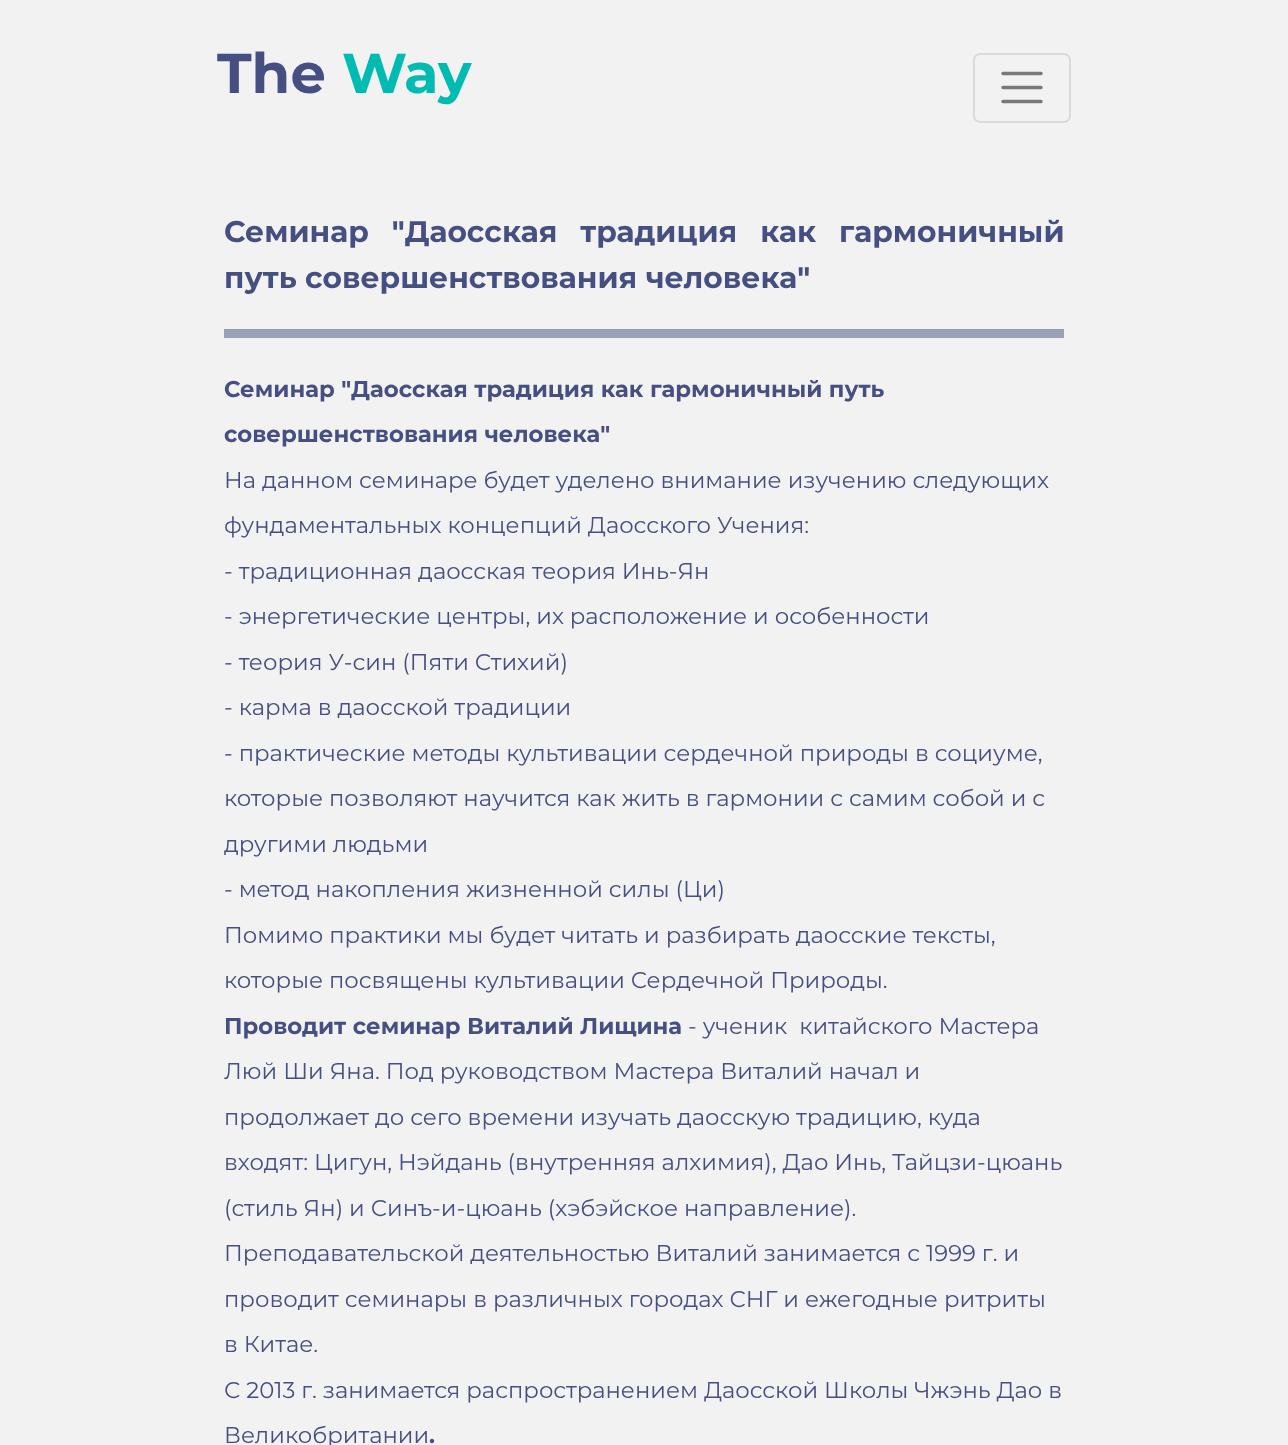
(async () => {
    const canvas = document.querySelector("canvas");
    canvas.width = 1288;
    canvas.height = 1445;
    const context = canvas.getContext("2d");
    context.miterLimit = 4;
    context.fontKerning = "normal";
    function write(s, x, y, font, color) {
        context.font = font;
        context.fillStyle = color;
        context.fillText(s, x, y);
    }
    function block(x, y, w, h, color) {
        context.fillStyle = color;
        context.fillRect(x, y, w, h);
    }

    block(0, 0, 1288, 1445, "rgb(242, 242, 242)");
    write("The", 217, 93, "bold 56px Montserrat", "rgb(70, 79, 129)");
    write("Way", 342, 93, "bold 56px Montserrat", "rgb(0, 187, 178)");
    context.beginPath();
    context.roundRect(974, 54, 96, 68, 6);
    context.strokeStyle = "rgb(218, 218, 218)";
    context.lineWidth = 2;
    context.stroke();
    context.beginPath();
    context.moveTo(1003, 73.5);
    context.lineTo(1041, 73.5);
    context.moveTo(1003, 87.5);
    context.lineTo(1041, 87.5);
    context.moveTo(1003, 101.5);
    context.lineTo(1041, 101.5);
    context.strokeStyle = "rgb(121, 121, 121)";
    context.lineWidth = 3.5;
    context.lineCap = "round";
    context.stroke();
    context.wordSpacing = "14.5px";
    write("Семинар \"Даосская традиция как гармоничный", 224, 242, "bold 29.75px Montserrat", "rgb(70, 79, 129)");
    context.wordSpacing = "0px";
    write("путь совершенствования человека\"", 224, 288, "bold 29.75px Montserrat", "rgb(70, 79, 129)");
    block(224, 331, 840, 7, "rgb(156, 161, 186)");
    block(224, 329, 840, 2, "rgb(153, 157, 180)");
    write("Семинар \"Даосская традиция как гармоничный путь", 224, 397, "bold 22.75px Montserrat", "rgb(70, 79, 129)");
    write("совершенствования человека\"", 224, 442, "bold 22.75px Montserrat", "rgb(70, 79, 129)");
    write("На данном семинаре будет уделено внимание изучению следующих", 224, 488, "22.75px Montserrat", "rgb(70, 79, 129)");
    write("фундаментальных концепций Даосского Учения:", 224, 533, "22.75px Montserrat", "rgb(70, 79, 129)");
    write("- традиционная даосская теория Инь-Ян", 224, 579, "22.75px Montserrat", "rgb(70, 79, 129)");
    write("- энергетические центры, их расположение и особенности", 224, 624, "22.75px Montserrat", "rgb(70, 79, 129)");
    write("- теория У-син (Пяти Стихий)", 224, 670, "22.75px Montserrat", "rgb(70, 79, 129)");
    write("- карма в даосской традиции", 224, 715, "22.75px Montserrat", "rgb(70, 79, 129)");
    write("- практические методы культивации сердечной природы в социуме,", 224, 761, "22.75px Montserrat", "rgb(70, 79, 129)");
    write("которые позволяют научится как жить в гармонии с самим собой и с", 224, 806, "22.75px Montserrat", "rgb(70, 79, 129)");
    write("другими людьми", 224, 852, "22.75px Montserrat", "rgb(70, 79, 129)");
    write("- метод накопления жизненной силы (Ци)", 224, 897, "22.75px Montserrat", "rgb(70, 79, 129)");
    write("Помимо практики мы будет читать и разбирать даосские тексты,", 224, 943, "22.75px Montserrat", "rgb(70, 79, 129)");
    write("которые посвящены культивации Сердечной Природы.", 224, 988, "22.75px Montserrat", "rgb(70, 79, 129)");
    write("Проводит семинар Виталий Лищина", 224, 1034, "bold 22.75px Montserrat", "rgb(70, 79, 129)");
    write("- ученик  китайского Мастера", 688, 1034, "22.75px Montserrat", "rgb(70, 79, 129)");
    write("Люй Ши Яна. Под руководством Мастера Виталий начал и", 224, 1079, "22.75px Montserrat", "rgb(70, 79, 129)");
    write("продолжает до сего времени изучать даосскую традицию, куда", 224, 1125, "22.75px Montserrat", "rgb(70, 79, 129)");
    write("входят: Цигун, Нэйдань (внутренняя алхимия), Дао Инь, Тайцзи-цюань", 224, 1170, "22.75px Montserrat", "rgb(70, 79, 129)");
    write("(стиль Ян) и Синъ-и-цюань (хэбэйское направление).", 224, 1216, "22.75px Montserrat", "rgb(70, 79, 129)");
    write("Преподавательской деятельностью Виталий занимается с 1999 г. и", 224, 1261, "22.75px Montserrat", "rgb(70, 79, 129)");
    write("проводит семинары в различных городах СНГ и ежегодные ритриты", 224, 1307, "22.75px Montserrat", "rgb(70, 79, 129)");
    write("в Китае.", 224, 1352, "22.75px Montserrat", "rgb(70, 79, 129)");
    write("С 2013 г. занимается распространением Даосской Школы Чжэнь Дао в", 224, 1398, "22.75px Montserrat", "rgb(70, 79, 129)");
    write("Великобритании", 224, 1443, "22.75px Montserrat", "rgb(70, 79, 129)");
    write(".", 429, 1443, "bold 22.75px Montserrat", "rgb(70, 79, 129)");
})();
